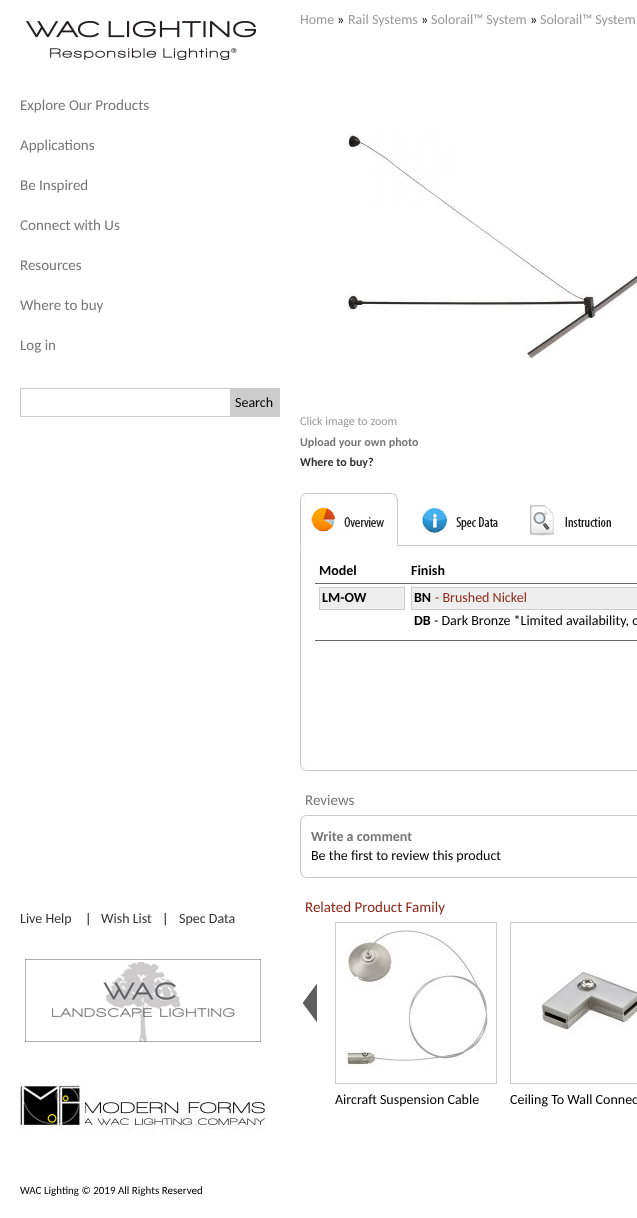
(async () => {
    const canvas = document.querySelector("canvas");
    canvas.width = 637;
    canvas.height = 1218;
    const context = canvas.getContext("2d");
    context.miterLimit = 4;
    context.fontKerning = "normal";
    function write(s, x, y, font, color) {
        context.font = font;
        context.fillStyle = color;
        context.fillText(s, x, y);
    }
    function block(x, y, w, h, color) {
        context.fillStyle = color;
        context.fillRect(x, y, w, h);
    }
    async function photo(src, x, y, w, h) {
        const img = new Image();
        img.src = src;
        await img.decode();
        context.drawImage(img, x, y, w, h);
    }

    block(0, 0, 637, 1218, "rgb(255, 255, 255)");
    await photo("media/1.png", 26, 21, 230, 39);
    write("Explore Our Products", 20, 110, "15px Carlito", "rgb(119, 119, 119)");
    write("Applications", 20, 150, "15px Carlito", "rgb(119, 119, 119)");
    write("Be Inspired", 20, 190, "15px Carlito", "rgb(119, 119, 119)");
    write("Connect with Us", 20, 230, "15px Carlito", "rgb(119, 119, 119)");
    write("Resources", 20, 270, "15px Carlito", "rgb(119, 119, 119)");
    write("Where to buy", 20, 310, "15px Carlito", "rgb(119, 119, 119)");
    write("Log in", 20, 350, "15px Carlito", "rgb(119, 119, 119)");
    context.strokeStyle = "rgb(204, 204, 204)";
    context.strokeRect(20.5, 388.5, 259, 28);
    block(230, 389, 49, 27, "rgb(204, 204, 204)");
    write("Search", 235, 407, "14px Carlito", "rgb(0, 0, 0)");
    write("Live Help", 20, 923, "14px Carlito", "rgb(51, 51, 51)");
    write("|", 85, 923, "14px Carlito", "rgb(0, 0, 0)");
    write("Wish List", 101, 923, "14px Carlito", "rgb(51, 51, 51)");
    write("|", 162, 923, "14px Carlito", "rgb(0, 0, 0)");
    write("Spec Data", 179, 923, "14px Carlito", "rgb(51, 51, 51)");
    await photo("media/2.png", 25, 959, 236, 83);
    await photo("media/3.png", 19, 1082, 247, 48);
    write("WAC Lighting © 2019 All Rights Reserved", 20, 1194, "11px Carlito", "rgb(0, 0, 0)");
    write("Home", 300, 24, "14px Carlito", "rgb(153, 153, 153)");
    write("»", 337, 24, "14px Carlito", "rgb(0, 0, 0)");
    write("Rail Systems", 348, 24, "14px Carlito", "rgb(153, 153, 153)");
    write("»", 421, 24, "14px Carlito", "rgb(0, 0, 0)");
    write("Solorail™ System", 431, 24, "14px Carlito", "rgb(153, 153, 153)");
    write("»", 530, 24, "14px Carlito", "rgb(0, 0, 0)");
    write("Solorail™ System", 540, 24, "14px Carlito", "rgb(153, 153, 153)");
    await photo("media/4.png", 347, 134, 290, 225);
    write("Click image to zoom", 300, 425, "12px Carlito", "rgb(153, 153, 153)");
    write("Upload your own photo", 300, 446, "bold 12px Carlito", "rgb(119, 119, 119)");
    write("Where to buy?", 300, 466, "bold 12px Carlito", "rgb(51, 51, 51)");
    await photo("media/5.png", 300, 493, 98, 65);
    await photo("media/6.png", 308, 505, 77, 28);
    await photo("media/7.png", 422, 507, 76, 26);
    await photo("media/8.png", 530, 505, 81, 31);
    await photo("media/9.png", 398, 545, 239, 13);
    block(300, 558, 1, 200, "rgb(204, 204, 204)");
    block(315, 583, 322, 1, "rgb(102, 102, 102)");
    write("Model", 319, 575, "bold 14px Carlito", "rgb(0, 0, 0)");
    write("Finish", 411, 575, "bold 14px Carlito", "rgb(0, 0, 0)");
    block(315, 640, 322, 1, "rgb(102, 102, 102)");
    context.fillStyle = "rgb(238, 238, 238)";
    context.beginPath();
    context.rect(319.5, 587.5, 85, 22);
    context.fill();
    context.stroke();
    write("LM-OW", 322, 602, "bold 14px Carlito", "rgb(0, 0, 0)");
    context.fillStyle = "rgb(238, 238, 238)";
    context.beginPath();
    context.rect(411.5, 587.5, 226, 22);
    context.fill();
    context.stroke();
    write("BN", 414, 602, "bold 14px Carlito", "rgb(0, 0, 0)");
    write("- Brushed Nickel", 435, 602, "14px Carlito", "rgb(142, 42, 27)");
    write("DB", 414, 625, "bold 14px Carlito", "rgb(0, 0, 0)");
    write("- Dark Bronze *Limited availability, c", 434, 625, "14px Carlito", "rgb(0, 0, 0)");
    await photo("media/10.png", 300, 758, 337, 13);
    write("Reviews", 305, 805, "15px Carlito", "rgb(119, 119, 119)");
    await photo("media/11.png", 300, 815, 337, 13);
    block(300, 828, 1, 37, "rgb(204, 204, 204)");
    write("Write a comment", 311, 841, "bold 14px Carlito", "rgb(119, 119, 119)");
    write("Be the first to review this product", 311, 860, "14px Carlito", "rgb(0, 0, 0)");
    await photo("media/10.png", 300, 865, 337, 13);
    write("Related Product Family", 305, 912, "15px Carlito", "rgb(142, 42, 27)");
    await photo("media/12.png", 303, 984, 14, 38);
    context.strokeRect(335.5, 922.5, 161, 161);
    await photo("media/13.png", 344, 930, 144, 137);
    write("Aircraft Suspension Cable", 335, 1104, "14px Carlito", "rgb(0, 0, 0)");
    context.strokeRect(510.5, 922.5, 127, 161);
    await photo("media/14.png", 536, 971, 101, 64);
    write("Ceiling To Wall Connec", 510, 1104, "14px Carlito", "rgb(0, 0, 0)");
})();
